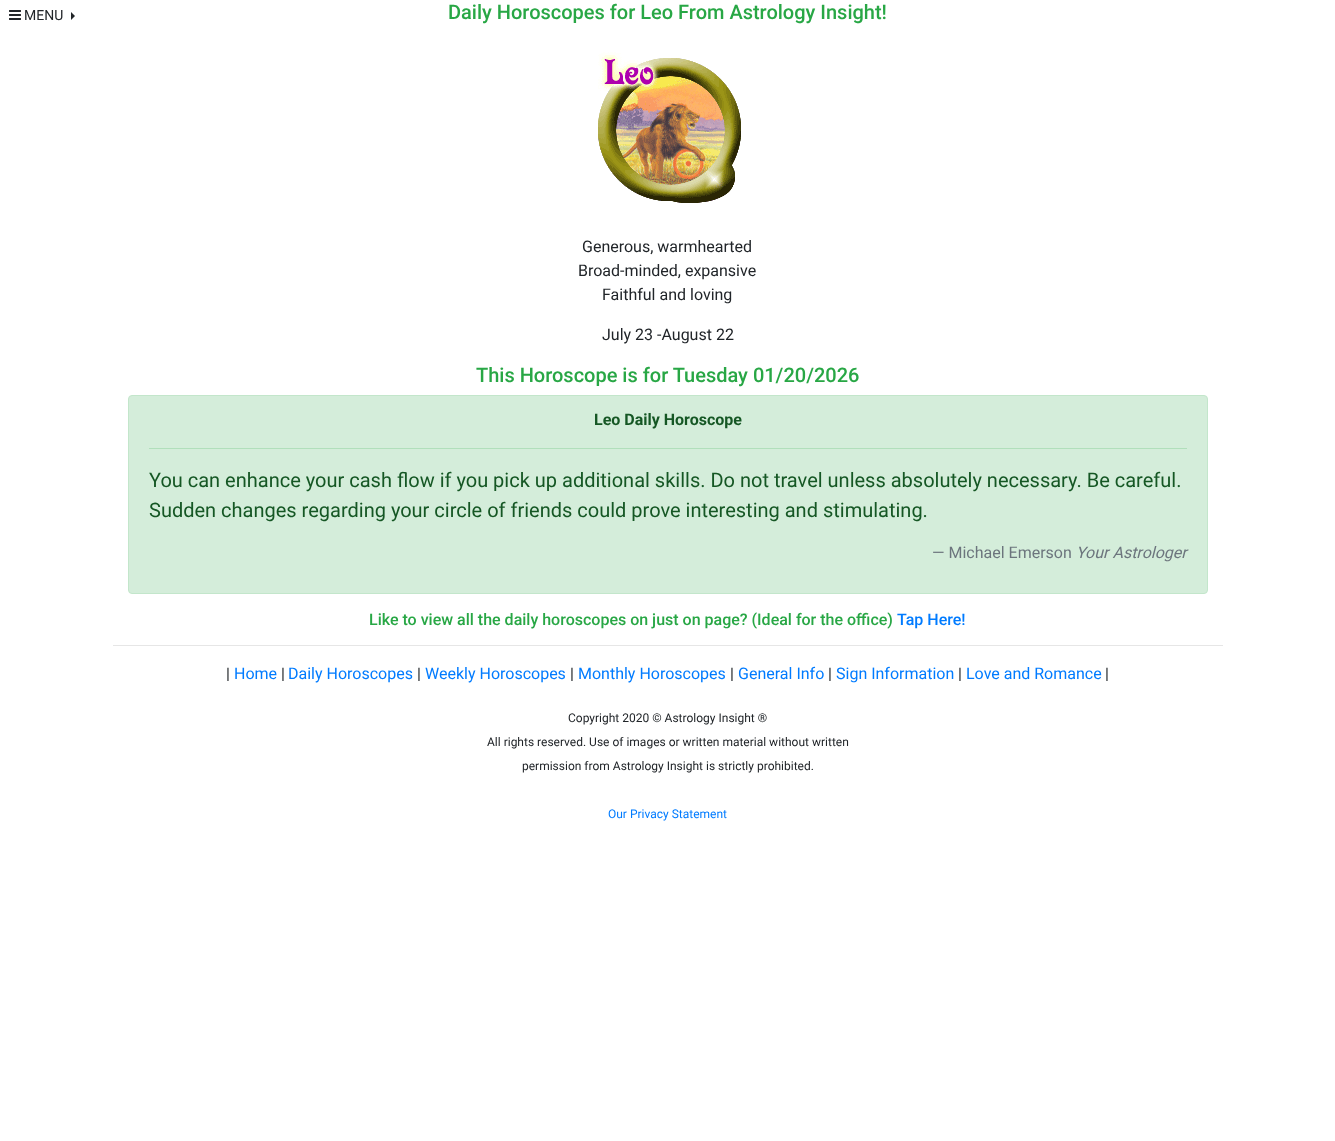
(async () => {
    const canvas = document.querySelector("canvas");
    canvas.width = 1335;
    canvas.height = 1141;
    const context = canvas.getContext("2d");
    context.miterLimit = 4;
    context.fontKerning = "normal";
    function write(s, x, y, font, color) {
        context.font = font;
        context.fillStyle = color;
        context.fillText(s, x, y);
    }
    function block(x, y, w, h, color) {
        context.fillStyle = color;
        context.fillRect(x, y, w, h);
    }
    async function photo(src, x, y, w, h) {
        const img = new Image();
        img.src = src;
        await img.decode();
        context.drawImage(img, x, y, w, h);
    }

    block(0, 0, 1335, 1141, "rgb(255, 255, 255)");
    await photo("media/1.png", 9, 10, 12, 10);
    write("MENU", 24, 20, "14px Roboto", "rgb(33, 37, 41)");
    context.beginPath();
    context.moveTo(71, 20);
    context.lineTo(71, 12);
    context.lineTo(75, 16);
    context.closePath();
    context.fill();
    write("Daily Horoscopes for Leo From Astrology Insight!", 448, 19, "500 20px Roboto", "rgb(40, 167, 69)");
    await photo("media/2.png", 598, 52, 143, 151);
    write("Generous, warmhearted", 582, 252, "16px Roboto", "rgb(33, 37, 41)");
    write("Broad-minded, expansive", 578, 276, "16px Roboto", "rgb(33, 37, 41)");
    write("Faithful and loving", 602, 300, "16px Roboto", "rgb(33, 37, 41)");
    write("July 23 -August 22", 602, 340, "16px Roboto", "rgb(33, 37, 41)");
    write("This Horoscope is for Tuesday 01/20/2026", 476, 382, "500 20px Roboto", "rgb(40, 167, 69)");
    context.fillStyle = "rgb(212, 237, 218)";
    context.beginPath();
    context.roundRect(128.5, 395.5, 1079, 198, 3.5);
    context.fill();
    context.strokeStyle = "rgb(195, 230, 203)";
    context.stroke();
    write("Leo Daily Horoscope", 594, 425, "bold 16px Roboto", "rgb(21, 87, 36)");
    block(149, 448, 1038, 1, "rgb(177, 223, 187)");
    write("You can enhance your cash flow if you pick up additional skills. Do not travel unless absolutely necessary. Be careful.", 149, 487, "20px Roboto", "rgb(21, 87, 36)");
    write("Sudden changes regarding your circle of friends could prove interesting and stimulating.", 149, 517, "20px Roboto", "rgb(21, 87, 36)");
    write("— Michael Emerson", 932, 558, "16px Roboto", "rgb(108, 117, 125)");
    write("Your Astrologer", 1076, 558, "italic 16px Roboto", "rgb(108, 117, 125)");
    write("Like to view all the daily horoscopes on just on page? (Ideal for the office)", 369, 625, "500 16px Roboto", "rgb(40, 167, 69)");
    write("Tap Here!", 897, 625, "500 16px Roboto", "rgb(0, 123, 255)");
    block(113, 645, 1110, 1, "rgb(230, 230, 230)");
    write("|", 226, 679, "16px Roboto", "rgb(33, 37, 41)");
    write("Home", 234, 679, "16px Roboto", "rgb(0, 123, 255)");
    write("|", 281, 679, "16px Roboto", "rgb(33, 37, 41)");
    write("Daily Horoscopes", 288, 679, "16px Roboto", "rgb(0, 123, 255)");
    write("|", 417, 679, "16px Roboto", "rgb(33, 37, 41)");
    write("Weekly Horoscopes", 425, 679, "16px Roboto", "rgb(0, 123, 255)");
    write("|", 570, 679, "16px Roboto", "rgb(33, 37, 41)");
    write("Monthly Horoscopes", 578, 679, "16px Roboto", "rgb(0, 123, 255)");
    write("|", 730, 679, "16px Roboto", "rgb(33, 37, 41)");
    write("General Info", 738, 679, "16px Roboto", "rgb(0, 123, 255)");
    write("|", 828, 679, "16px Roboto", "rgb(33, 37, 41)");
    write("Sign Information", 836, 679, "16px Roboto", "rgb(0, 123, 255)");
    write("|", 958, 679, "16px Roboto", "rgb(33, 37, 41)");
    write("Love and Romance", 966, 679, "16px Roboto", "rgb(0, 123, 255)");
    write("|", 1105, 679, "16px Roboto", "rgb(33, 37, 41)");
    write("Copyright 2020 © Astrology Insight ®", 568, 722, "12px Roboto", "rgb(33, 37, 41)");
    write("All rights reserved. Use of images or written material without written", 487, 746, "12px Roboto", "rgb(33, 37, 41)");
    write("permission from Astrology Insight is strictly prohibited.", 522, 770, "12px Roboto", "rgb(33, 37, 41)");
    write("Our Privacy Statement", 608, 818, "12px Roboto", "rgb(0, 123, 255)");
})();
